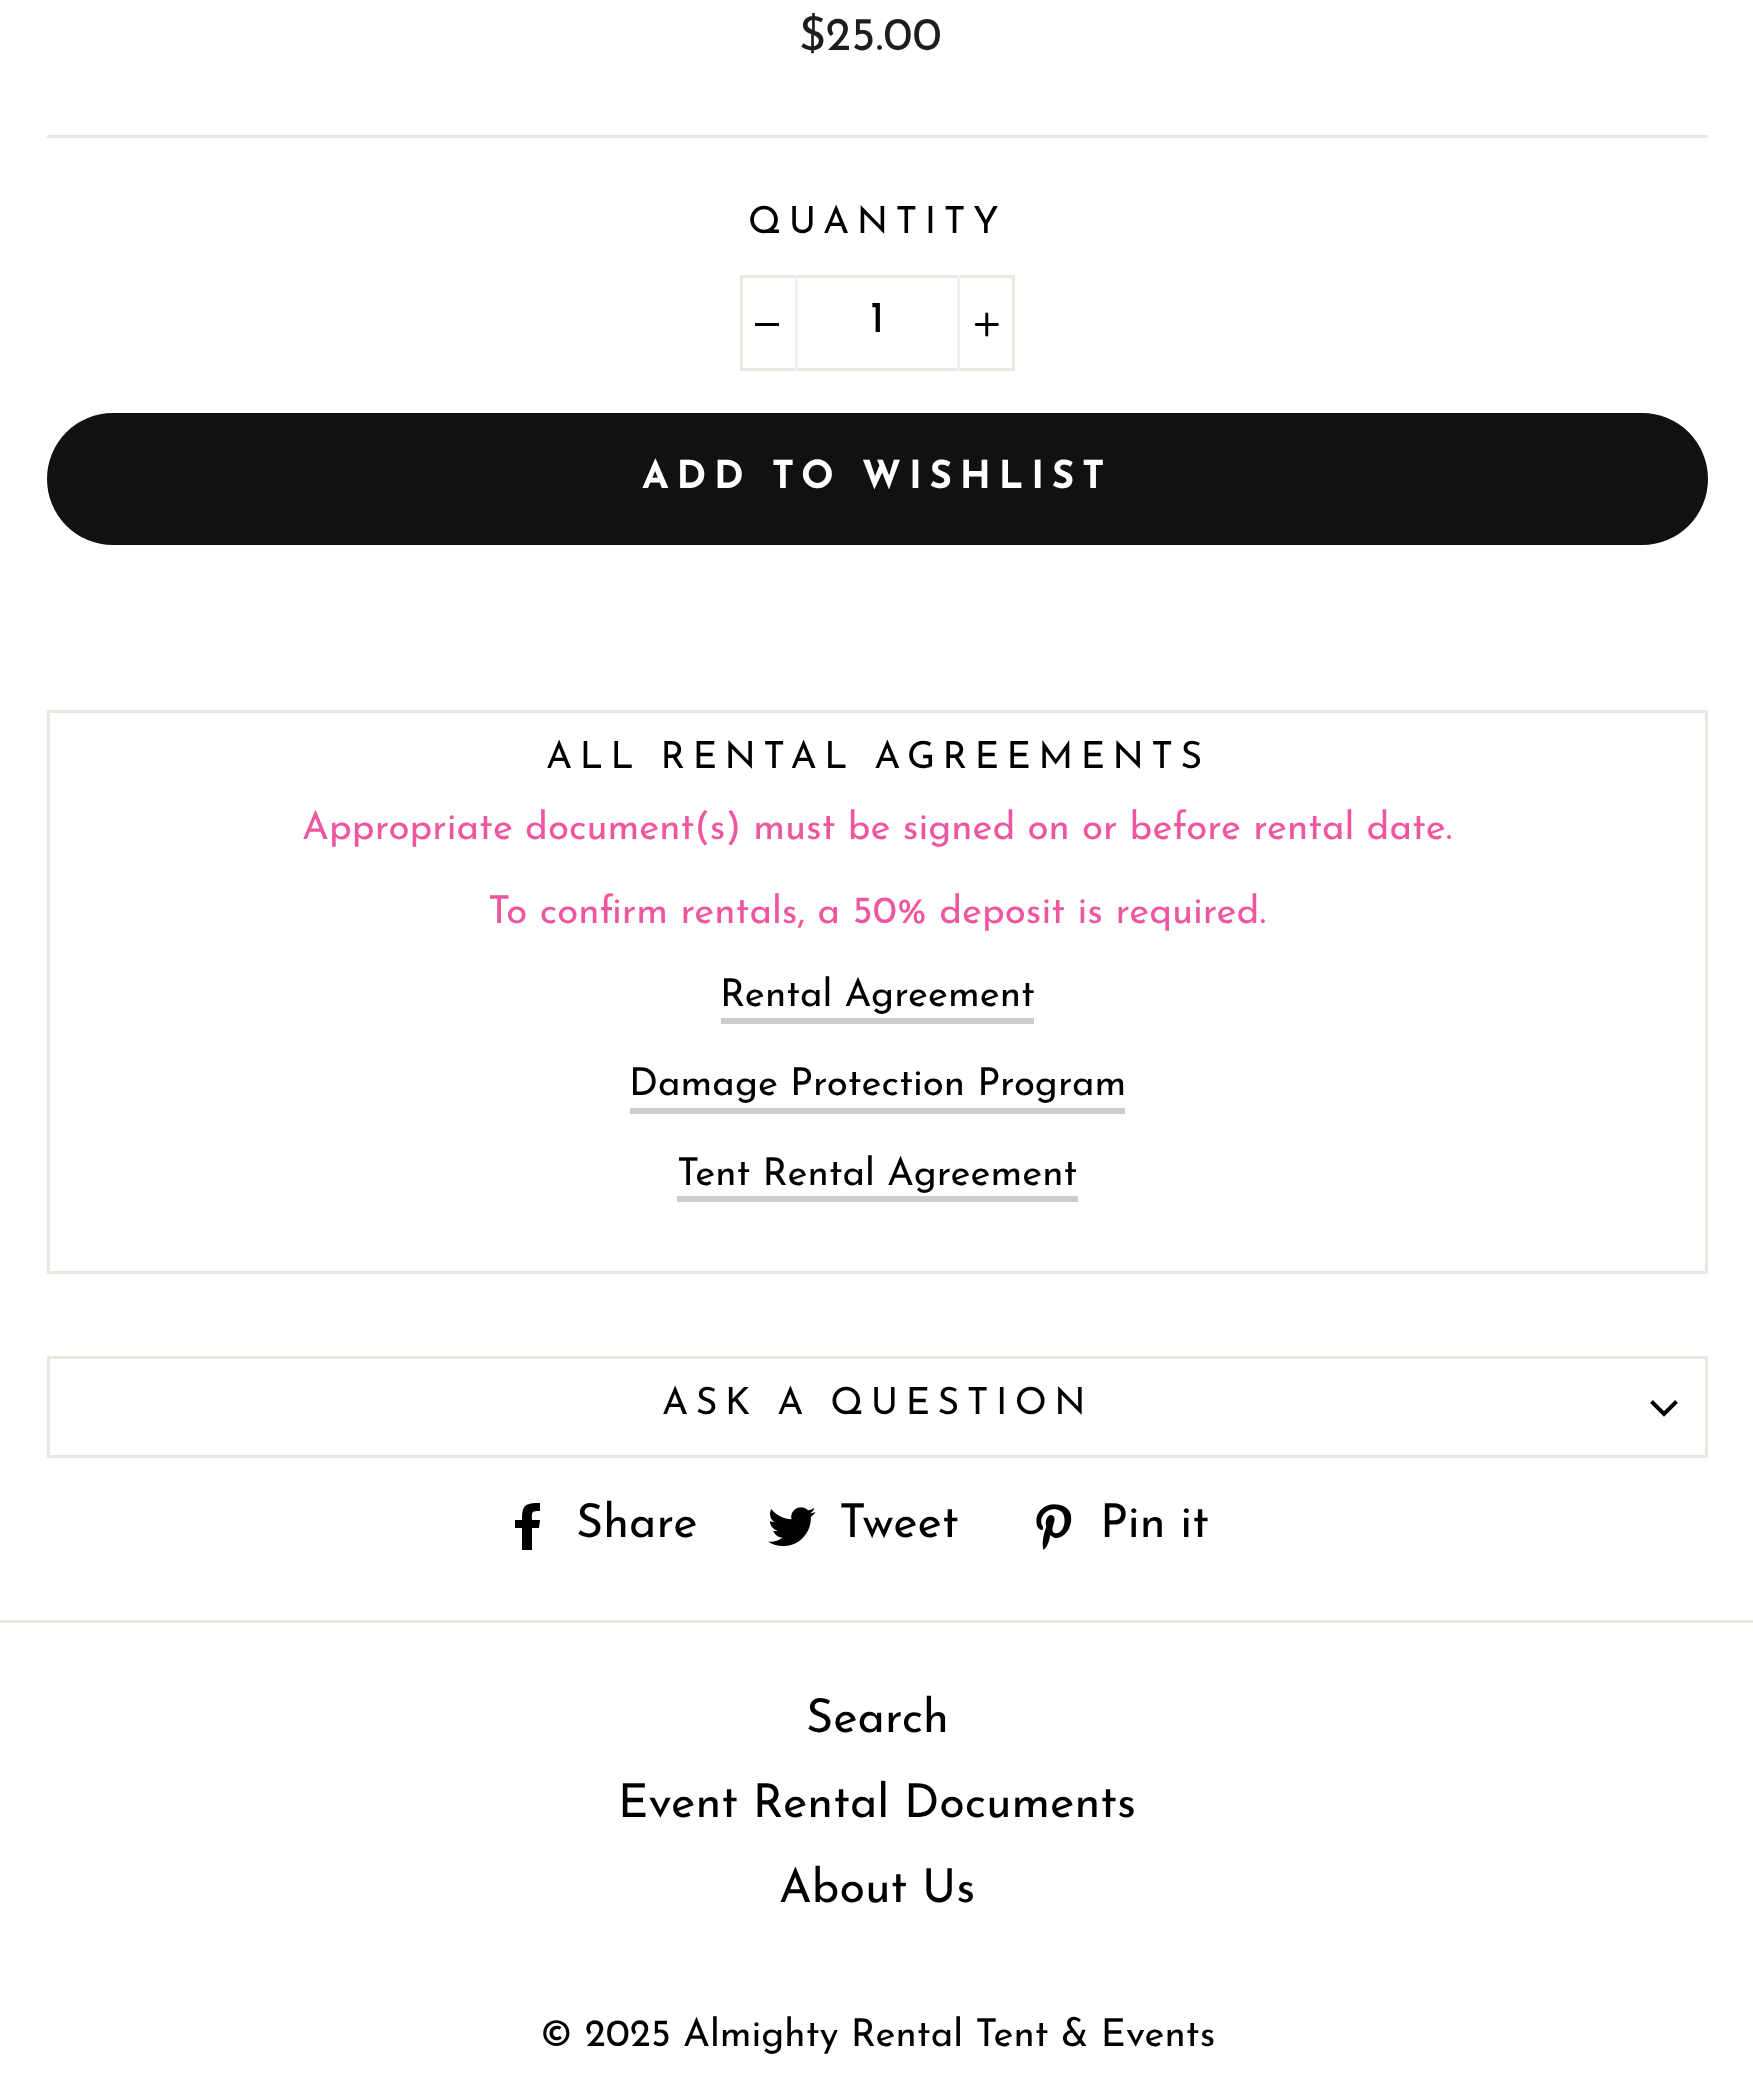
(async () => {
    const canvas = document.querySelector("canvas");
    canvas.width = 1753;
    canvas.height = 2078;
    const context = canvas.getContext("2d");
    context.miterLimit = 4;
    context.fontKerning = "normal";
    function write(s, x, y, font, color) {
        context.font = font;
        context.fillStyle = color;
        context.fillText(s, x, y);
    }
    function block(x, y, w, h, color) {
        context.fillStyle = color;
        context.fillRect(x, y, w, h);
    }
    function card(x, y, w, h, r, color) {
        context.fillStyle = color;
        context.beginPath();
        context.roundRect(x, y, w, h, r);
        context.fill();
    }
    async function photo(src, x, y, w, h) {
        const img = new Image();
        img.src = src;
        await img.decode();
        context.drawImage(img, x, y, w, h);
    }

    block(0, 0, 1753, 2078, "rgb(255, 255, 255)");
    write("$25.00", 799, 50, "46.75px Josefin Sans", "rgb(28, 29, 29)");
    block(47, 135, 1661, 3, "rgb(232, 232, 225)");
    context.letterSpacing = "7.5px";
    write("QUANTITY", 748, 233, "37.4px Josefin Sans", "rgb(0, 0, 0)");
    context.strokeStyle = "rgb(232, 232, 225)";
    context.lineWidth = 3;
    context.strokeRect(741.5, 276.5, 272, 93);
    block(795, 275, 3, 96, "rgb(242, 242, 242)");
    block(755, 323, 24, 3, "rgb(0, 0, 0)");
    context.letterSpacing = "0px";
    write("1", 870, 332, "44px Josefin Sans", "rgb(0, 0, 0)");
    block(957, 275, 3, 96, "rgb(242, 242, 242)");
    await photo("media/1.png", 974, 312, 25, 25);
    card(47, 413, 1661, 132, 66, "rgb(17, 17, 17)");
    context.letterSpacing = "7.75px";
    write("ADD TO WISHLIST", 642, 488, "bold 38.5px Josefin Sans", "rgb(255, 255, 255)");
    block(47, 1455, 1661, 3, "rgb(232, 232, 225)");
    block(47, 710, 1661, 3, "rgb(232, 232, 225)");
    block(1705, 710, 3, 563, "rgb(232, 232, 225)");
    block(47, 710, 3, 99, "rgb(232, 232, 225)");
    context.letterSpacing = "7.5px";
    write("ALL RENTAL AGREEMENTS", 546, 768, "37.4px Josefin Sans", "rgb(0, 0, 0)");
    block(47, 1271, 1661, 3, "rgb(232, 232, 225)");
    block(47, 809, 3, 464, "rgb(232, 232, 225)");
    context.letterSpacing = "0px";
    write("Appropriate document(s) must be signed on or before rental date.", 302, 839, "38.5px Josefin Sans", "rgb(239, 86, 160)");
    context.wordSpacing = "0.25px";
    write("To confirm rentals, a 50% deposit is required.", 488, 923, "38.5px Josefin Sans", "rgb(239, 86, 160)");
    block(721, 1018, 313, 6, "rgb(204, 204, 204)");
    context.wordSpacing = "0px";
    write("Rental Agreement", 720, 1006, "38.5px Josefin Sans", "rgb(0, 0, 0)");
    block(630, 1108, 495, 6, "rgb(204, 204, 204)");
    write("Damage Protection Program", 629, 1095, "38.5px Josefin Sans", "rgb(0, 0, 0)");
    block(677, 1196, 401, 6, "rgb(204, 204, 204)");
    write("Tent Rental Agreement", 677, 1185, "38.5px Josefin Sans", "rgb(0, 0, 0)");
    block(47, 1356, 1661, 3, "rgb(232, 232, 225)");
    block(1705, 1356, 3, 99, "rgb(232, 232, 225)");
    block(47, 1356, 3, 99, "rgb(232, 232, 225)");
    context.letterSpacing = "7.5px";
    write("ASK A QUESTION", 662, 1414, "37.4px Josefin Sans", "rgb(0, 0, 0)");
    context.beginPath();
    context.moveTo(1651.5, 1401.5);
    context.lineTo(1664, 1414);
    context.lineTo(1676.5, 1401.5);
    context.strokeStyle = "rgb(0, 0, 0)";
    context.lineWidth = 3.9;
    context.stroke();
    context.beginPath();
    context.moveTo(532, 1550);
    context.lineTo(532, 1528);
    context.lineTo(539, 1528);
    context.lineTo(540, 1520);
    context.lineTo(532, 1520);
    context.bezierCurveTo(532, 1512, 531, 1511, 540, 1511);
    context.lineTo(540, 1503);
    context.bezierCurveTo(525, 1503, 522, 1505, 522, 1520);
    context.lineTo(515, 1520);
    context.lineTo(515, 1528);
    context.lineTo(522, 1528);
    context.lineTo(522, 1550);
    context.closePath();
    context.fill();
    context.letterSpacing = "0px";
    write("Share", 576, 1537, "46.75px Josefin Sans", "rgb(0, 0, 0)");
    await photo("media/2.png", 768, 1507, 48, 40);
    write("Tweet", 839, 1537, "46.75px Josefin Sans", "rgb(0, 0, 0)");
    await photo("media/3.png", 1036, 1504, 36, 46);
    write("Pin it", 1100, 1537, "46.75px Josefin Sans", "rgb(0, 0, 0)");
    block(0, 1620, 1753, 3, "rgb(232, 232, 225)");
    write("Search", 806, 1732, "46.75px Josefin Sans", "rgb(0, 0, 0)");
    write("Event Rental Documents", 618, 1817, "46.75px Josefin Sans", "rgb(0, 0, 0)");
    write("About Us", 779, 1902, "46.75px Josefin Sans", "rgb(0, 0, 0)");
    write("© 2025 Almighty Rental Tent & Events", 540, 2046, "38.5px Josefin Sans", "rgb(0, 0, 0)");
})();
